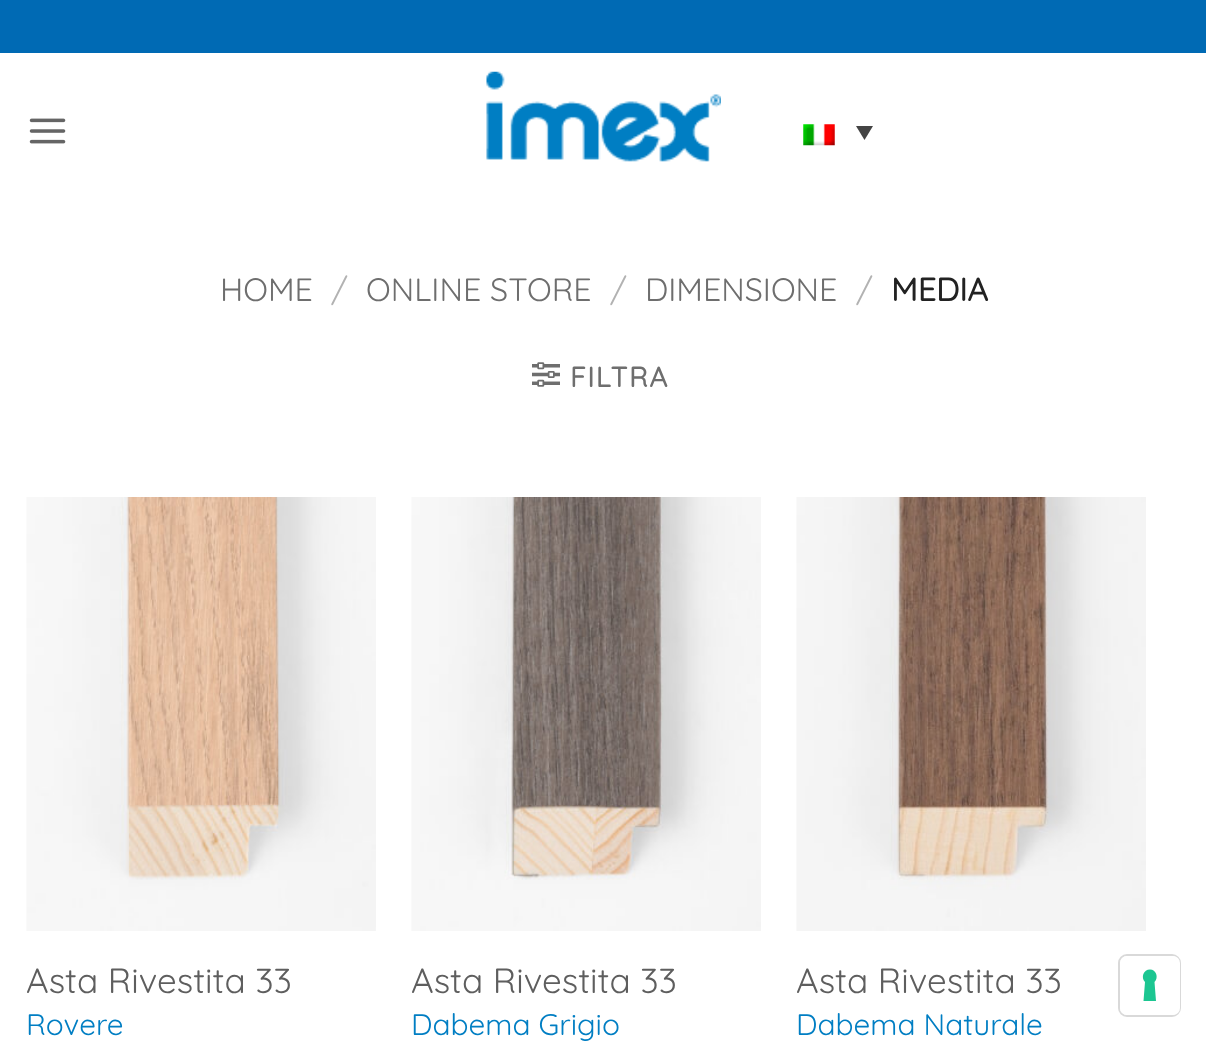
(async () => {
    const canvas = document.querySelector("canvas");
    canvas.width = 1206;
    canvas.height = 1043;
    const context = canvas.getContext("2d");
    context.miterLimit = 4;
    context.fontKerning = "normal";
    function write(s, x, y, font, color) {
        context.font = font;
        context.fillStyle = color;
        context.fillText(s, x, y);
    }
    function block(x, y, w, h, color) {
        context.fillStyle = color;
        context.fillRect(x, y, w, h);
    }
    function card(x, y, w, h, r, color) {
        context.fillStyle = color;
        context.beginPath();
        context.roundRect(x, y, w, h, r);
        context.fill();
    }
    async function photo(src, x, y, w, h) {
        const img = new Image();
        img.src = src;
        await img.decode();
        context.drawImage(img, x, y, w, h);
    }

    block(0, 0, 1206, 1043, "rgb(255, 255, 255)");
    block(0, 0, 1206, 53, "rgb(0, 106, 180)");
    await photo("media/1.png", 29, 118, 37, 26);
    await photo("media/2.png", 486, 71, 235, 91);
    await photo("media/3.png", 803, 124, 32, 22);
    context.fillStyle = "rgb(68, 68, 68)";
    context.beginPath();
    context.moveTo(856, 126);
    context.lineTo(873, 126);
    context.lineTo(864.5, 140);
    context.closePath();
    context.fill();
    write("HOME", 220, 301, "300 32.25px Quicksand", "rgb(110, 110, 110)");
    write("/", 331, 301, "300 32.25px Quicksand", "rgb(178, 178, 178)");
    write("ONLINE STORE", 366, 301, "300 32.25px Quicksand", "rgb(110, 110, 110)");
    write("/", 610, 301, "300 32.25px Quicksand", "rgb(178, 178, 178)");
    write("DIMENSIONE", 645, 301, "300 32.25px Quicksand", "rgb(110, 110, 110)");
    write("/", 856, 301, "300 32.25px Quicksand", "rgb(178, 178, 178)");
    write("MEDIA", 891, 301, "bold 32.25px Quicksand", "rgb(34, 34, 34)");
    await photo("media/4.png", 532, 362, 28, 25);
    context.letterSpacing = "1.5px";
    write("FILTRA", 570, 387, "bold 28px Quicksand", "rgb(110, 110, 110)");
    await photo("media/5.png", 26, 497, 350, 434);
    context.letterSpacing = "0px";
    write("Asta Rivestita 33", 26, 993, "300 35px Quicksand", "rgb(94, 94, 94)");
    write("Rovere", 26, 1035, "300 29.75px Quicksand", "rgb(0, 126, 195)");
    await photo("media/6.png", 411, 497, 350, 434);
    write("Asta Rivestita 33", 411, 993, "300 35px Quicksand", "rgb(94, 94, 94)");
    write("Dabema Grigio", 411, 1035, "300 29.75px Quicksand", "rgb(0, 126, 195)");
    await photo("media/7.png", 796, 497, 350, 434);
    write("Asta Rivestita 33", 796, 993, "300 35px Quicksand", "rgb(94, 94, 94)");
    write("Dabema Naturale", 796, 1035, "300 29.75px Quicksand", "rgb(0, 126, 195)");
    context.beginPath();
    context.roundRect(1119, 955, 61, 61, 8);
    context.strokeStyle = "rgb(217, 217, 217)";
    context.lineWidth = 2;
    context.stroke();
    card(1120, 956, 60, 59, 7, "rgb(255, 255, 255)");
    context.fillStyle = "rgb(28, 198, 145)";
    context.beginPath();
    context.moveTo(1150, 969.5);
    context.bezierCurveTo(1156, 969.5, 1159, 977.5, 1154.5, 982);
    context.lineTo(1156, 1001);
    context.lineTo(1143.5, 1001);
    context.lineTo(1145, 982);
    context.bezierCurveTo(1140.5, 977.5, 1143.5, 969.5, 1150, 969.5);
    context.closePath();
    context.fill("evenodd");
})();
